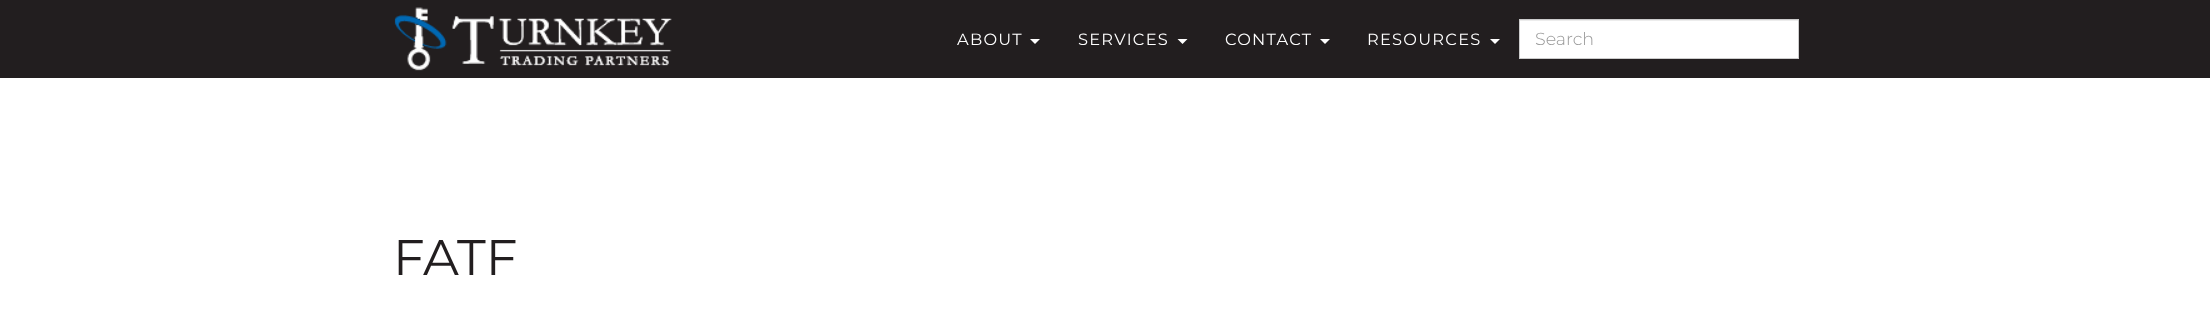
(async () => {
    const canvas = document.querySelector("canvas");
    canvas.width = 2210;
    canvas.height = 318;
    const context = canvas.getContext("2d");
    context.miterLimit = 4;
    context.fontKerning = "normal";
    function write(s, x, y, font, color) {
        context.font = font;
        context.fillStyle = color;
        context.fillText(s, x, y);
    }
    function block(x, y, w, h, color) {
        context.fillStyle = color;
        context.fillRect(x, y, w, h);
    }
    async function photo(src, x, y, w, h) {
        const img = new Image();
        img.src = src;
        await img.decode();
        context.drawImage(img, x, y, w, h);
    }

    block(0, 0, 2210, 318, "rgb(255, 255, 255)");
    block(0, 0, 2210, 78, "rgb(34, 30, 31)");
    await photo("media/1.png", 394, 7, 278, 64);
    context.letterSpacing = "1.25px";
    write("ABOUT", 957, 45, "16.25px Montserrat", "rgb(255, 255, 255)");
    context.beginPath();
    context.moveTo(1030, 39);
    context.lineTo(1040, 39);
    context.lineTo(1035, 44);
    context.closePath();
    context.fill();
    write("SERVICES", 1078, 45, "16.25px Montserrat", "rgb(255, 255, 255)");
    context.beginPath();
    context.moveTo(1177.5, 39);
    context.lineTo(1187.5, 39);
    context.lineTo(1182.5, 44);
    context.closePath();
    context.fill();
    write("CONTACT", 1225, 45, "16.25px Montserrat", "rgb(255, 255, 255)");
    context.beginPath();
    context.moveTo(1320, 39);
    context.lineTo(1330, 39);
    context.lineTo(1325, 44);
    context.closePath();
    context.fill();
    write("RESOURCES", 1367, 45, "16.25px Montserrat", "rgb(255, 255, 255)");
    context.beginPath();
    context.moveTo(1490, 39);
    context.lineTo(1500, 39);
    context.lineTo(1495, 44);
    context.closePath();
    context.fill();
    block(1520, 21, 278, 37, "rgb(255, 255, 255)");
    block(1520, 20, 278, 1, "rgb(236, 236, 236)");
    context.strokeStyle = "rgb(204, 204, 204)";
    context.strokeRect(1519.5, 19.5, 279, 39);
    context.letterSpacing = "0px";
    write("Search", 1535, 45, "300 17.5px Montserrat", "rgb(153, 153, 153)");
    write("FATF", 393, 275, "50px Montserrat", "rgb(34, 30, 31)");
})();
